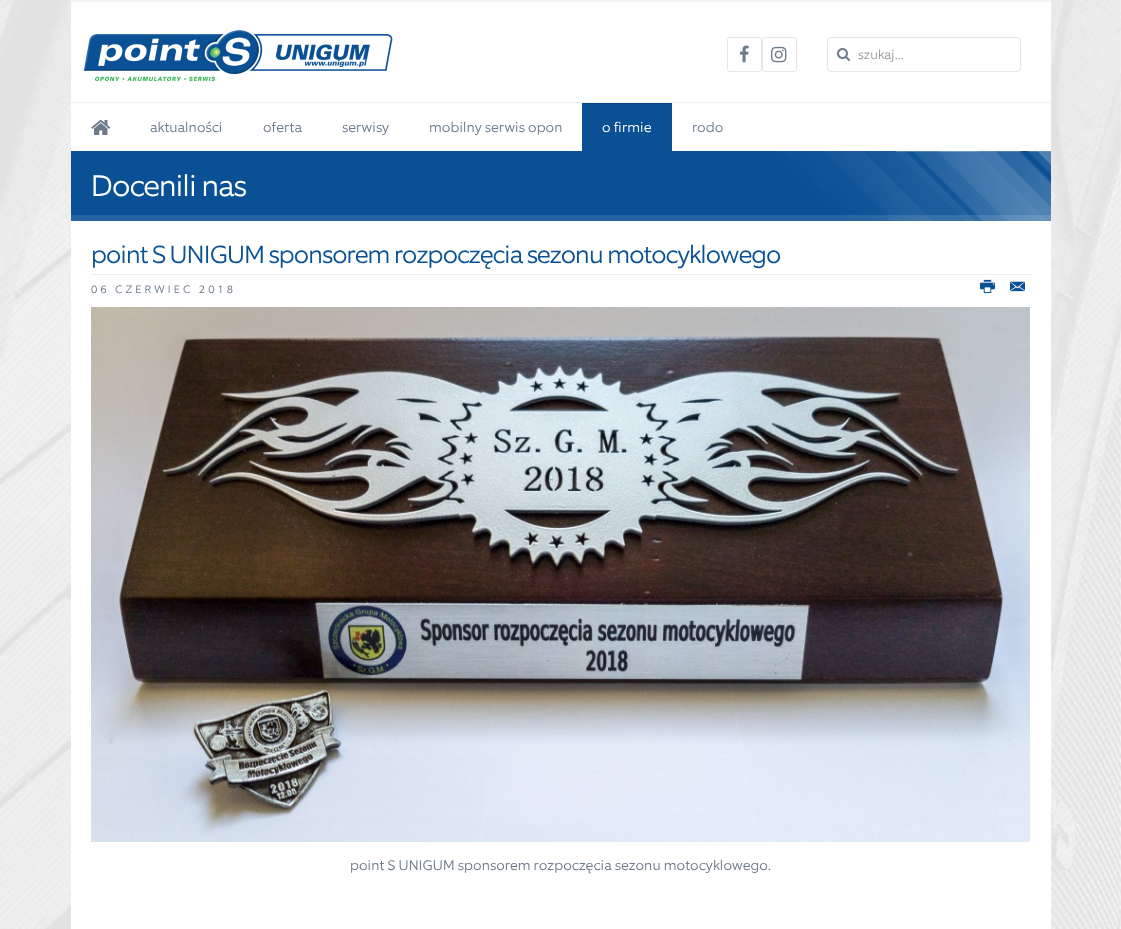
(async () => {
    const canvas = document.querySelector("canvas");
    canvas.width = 1121;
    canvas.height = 929;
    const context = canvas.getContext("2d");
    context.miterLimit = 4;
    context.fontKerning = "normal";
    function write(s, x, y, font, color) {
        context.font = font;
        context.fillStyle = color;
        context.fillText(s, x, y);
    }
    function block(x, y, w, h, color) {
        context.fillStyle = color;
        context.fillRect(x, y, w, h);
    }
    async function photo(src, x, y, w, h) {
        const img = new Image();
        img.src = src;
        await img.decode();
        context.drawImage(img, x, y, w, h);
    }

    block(0, 0, 1121, 929, "rgb(255, 255, 255)");
    await photo("media/1.png", 0, 0, 1121, 929);
    block(71, 0, 980, 2, "rgb(244, 244, 244)");
    block(71, 2, 980, 927, "rgb(255, 255, 255)");
    await photo("media/2.png", 83, 30, 310, 51);
    context.beginPath();
    context.roundRect(727.5, 37.5, 34, 34, 2.5);
    context.strokeStyle = "rgb(230, 230, 230)";
    context.stroke();
    await photo("media/3.png", 739, 45, 10, 18);
    context.beginPath();
    context.roundRect(762.5, 37.5, 34, 34, 2.5);
    context.stroke();
    await photo("media/4.png", 771, 46, 16, 17);
    context.beginPath();
    context.roundRect(827.5, 37.5, 193, 34, 3.5);
    context.stroke();
    await photo("media/5.png", 837, 48, 13, 13);
    write("szukaj...", 858, 59, "300 13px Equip", "rgb(153, 153, 153)");
    block(71, 102, 980, 1, "rgb(242, 242, 242)");
    await photo("media/6.png", 91, 120, 20, 15);
    write("aktualności", 150, 132, "300 14px Equip", "rgb(108, 122, 138)");
    write("oferta", 263, 132, "300 14px Equip", "rgb(108, 122, 138)");
    write("serwisy", 342, 132, "300 14px Equip", "rgb(108, 122, 138)");
    write("mobilny serwis opon", 429, 132, "300 14px Equip", "rgb(108, 122, 138)");
    block(582, 104, 90, 47, "rgb(9, 80, 149)");
    block(582, 103, 90, 1, "rgb(8, 72, 134)");
    write("o firmie", 602, 132, "300 14px Equip", "rgb(255, 255, 255)");
    write("rodo", 692, 132, "300 14px Equip", "rgb(108, 122, 138)");
    block(71, 151, 980, 70, "rgb(9, 80, 149)");
    await photo("media/7.png", 782, 151, 269, 70);
    block(71, 215, 980, 6, "rgba(255, 255, 255, 0.12)");
    context.letterSpacing = "-1px";
    write("Docenili nas", 91, 196, "300 30px Equip", "rgb(255, 255, 255)");
    block(91, 274, 940, 1, "rgb(236, 236, 236)");
    write("point S UNIGUM sponsorem rozpoczęcia sezonu motocyklowego", 91, 263, "300 25px Equip", "rgb(9, 80, 149)");
    context.letterSpacing = "3px";
    write("06 CZERWIEC 2018", 91, 293, "300 11px Equip", "rgb(108, 122, 138)");
    await photo("media/8.png", 980, 279, 15, 14);
    await photo("media/9.png", 1010, 281, 15, 11);
    await photo("media/10.png", 91, 307, 939, 535);
    context.letterSpacing = "0px";
    write("point S UNIGUM sponsorem rozpoczęcia sezonu motocyklowego.", 350, 870, "300 14px Equip", "rgb(108, 122, 138)");
})();
